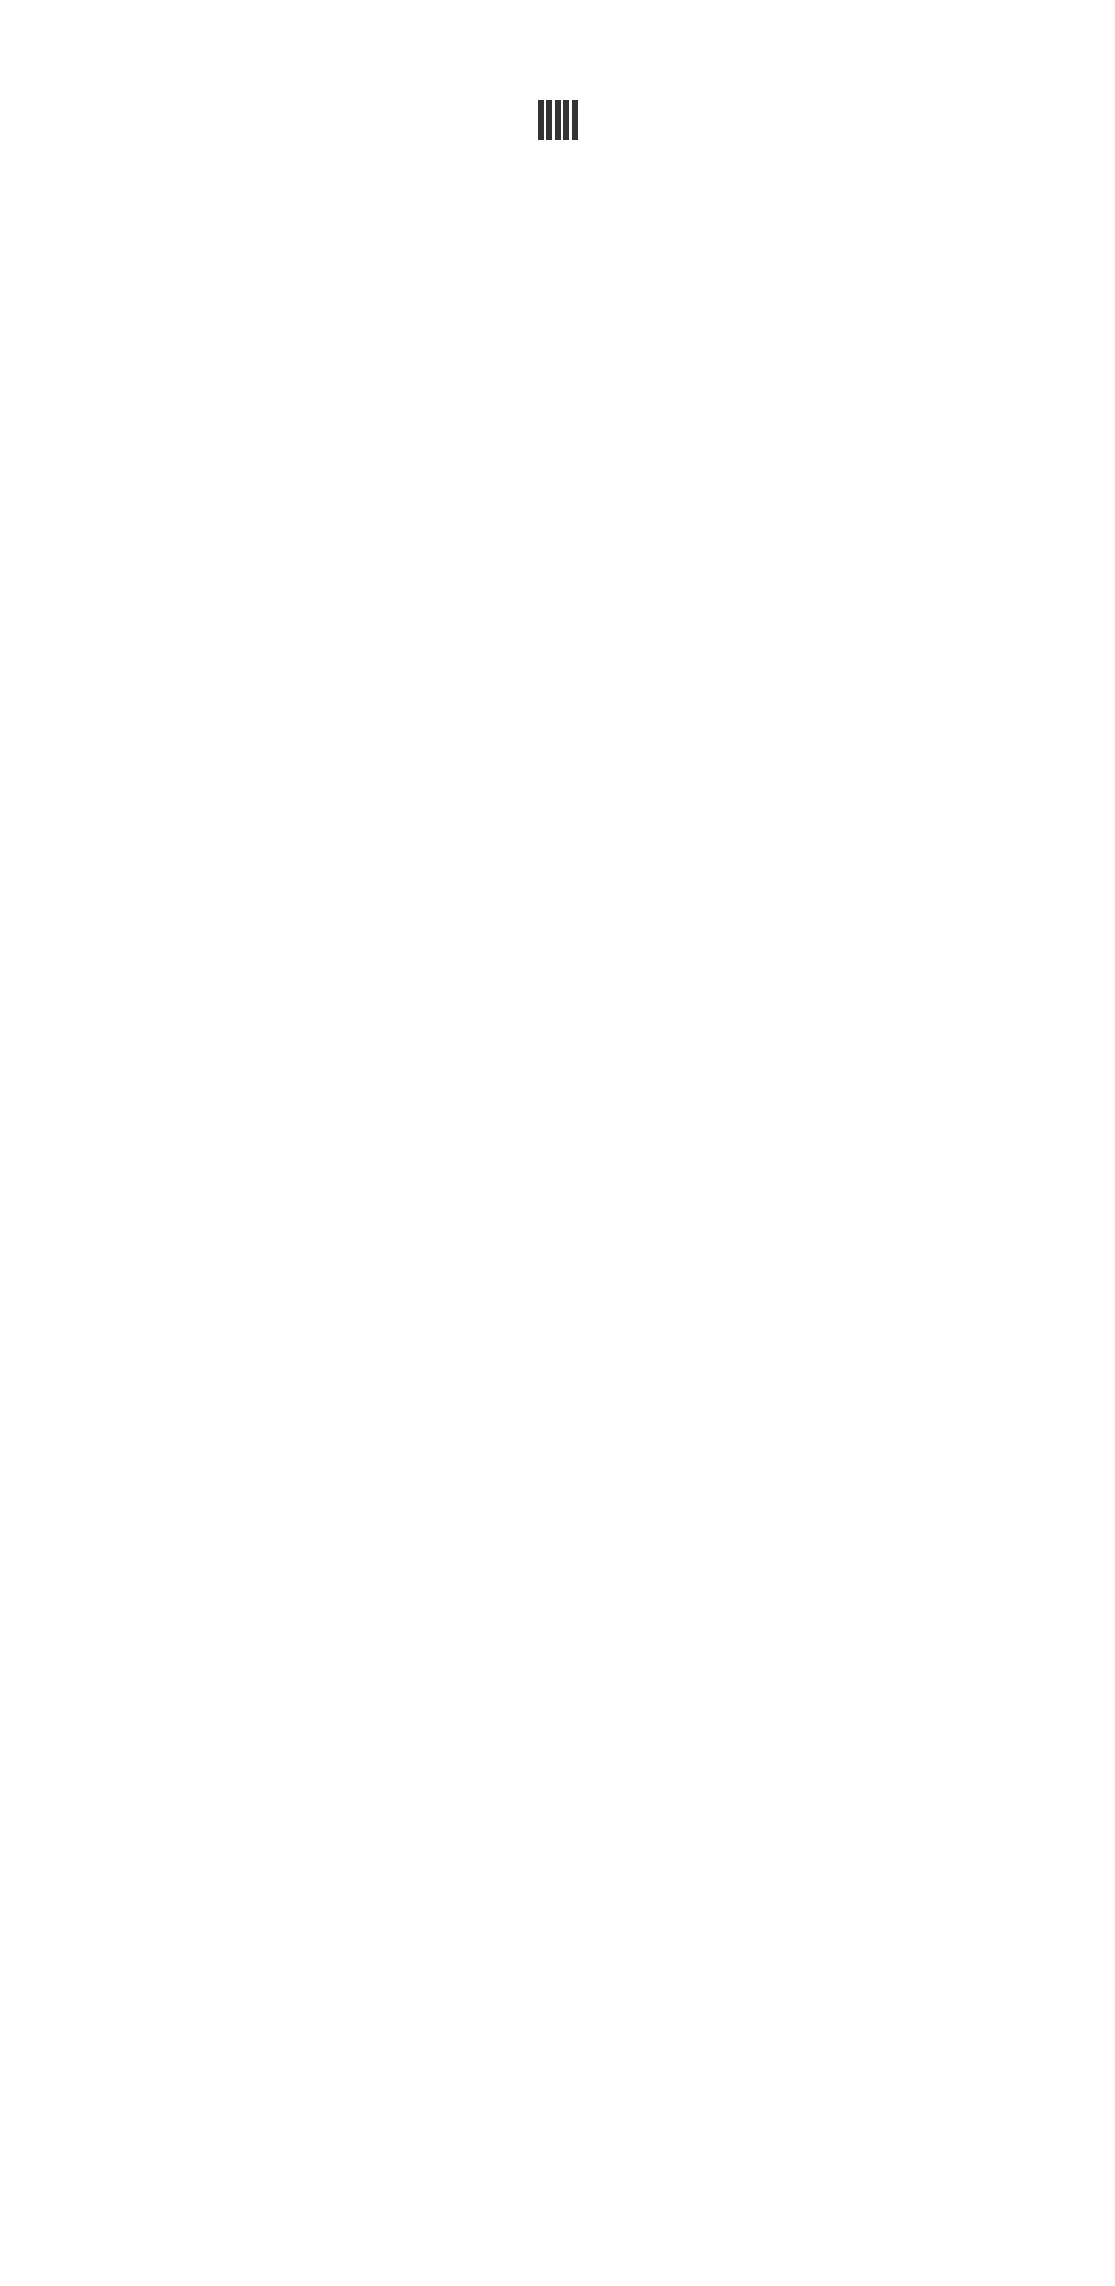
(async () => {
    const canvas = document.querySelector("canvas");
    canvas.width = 1115;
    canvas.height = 2286;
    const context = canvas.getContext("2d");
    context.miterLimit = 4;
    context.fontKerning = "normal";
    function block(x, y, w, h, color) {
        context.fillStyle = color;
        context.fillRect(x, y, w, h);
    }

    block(0, 0, 1115, 2286, "rgb(255, 255, 255)");
    block(538, 100, 6, 40, "rgb(51, 51, 51)");
    block(546, 100, 6, 40, "rgb(51, 51, 51)");
    block(555, 100, 6, 40, "rgb(51, 51, 51)");
    block(563, 100, 6, 40, "rgb(51, 51, 51)");
    block(572, 100, 6, 40, "rgb(51, 51, 51)");
})();
